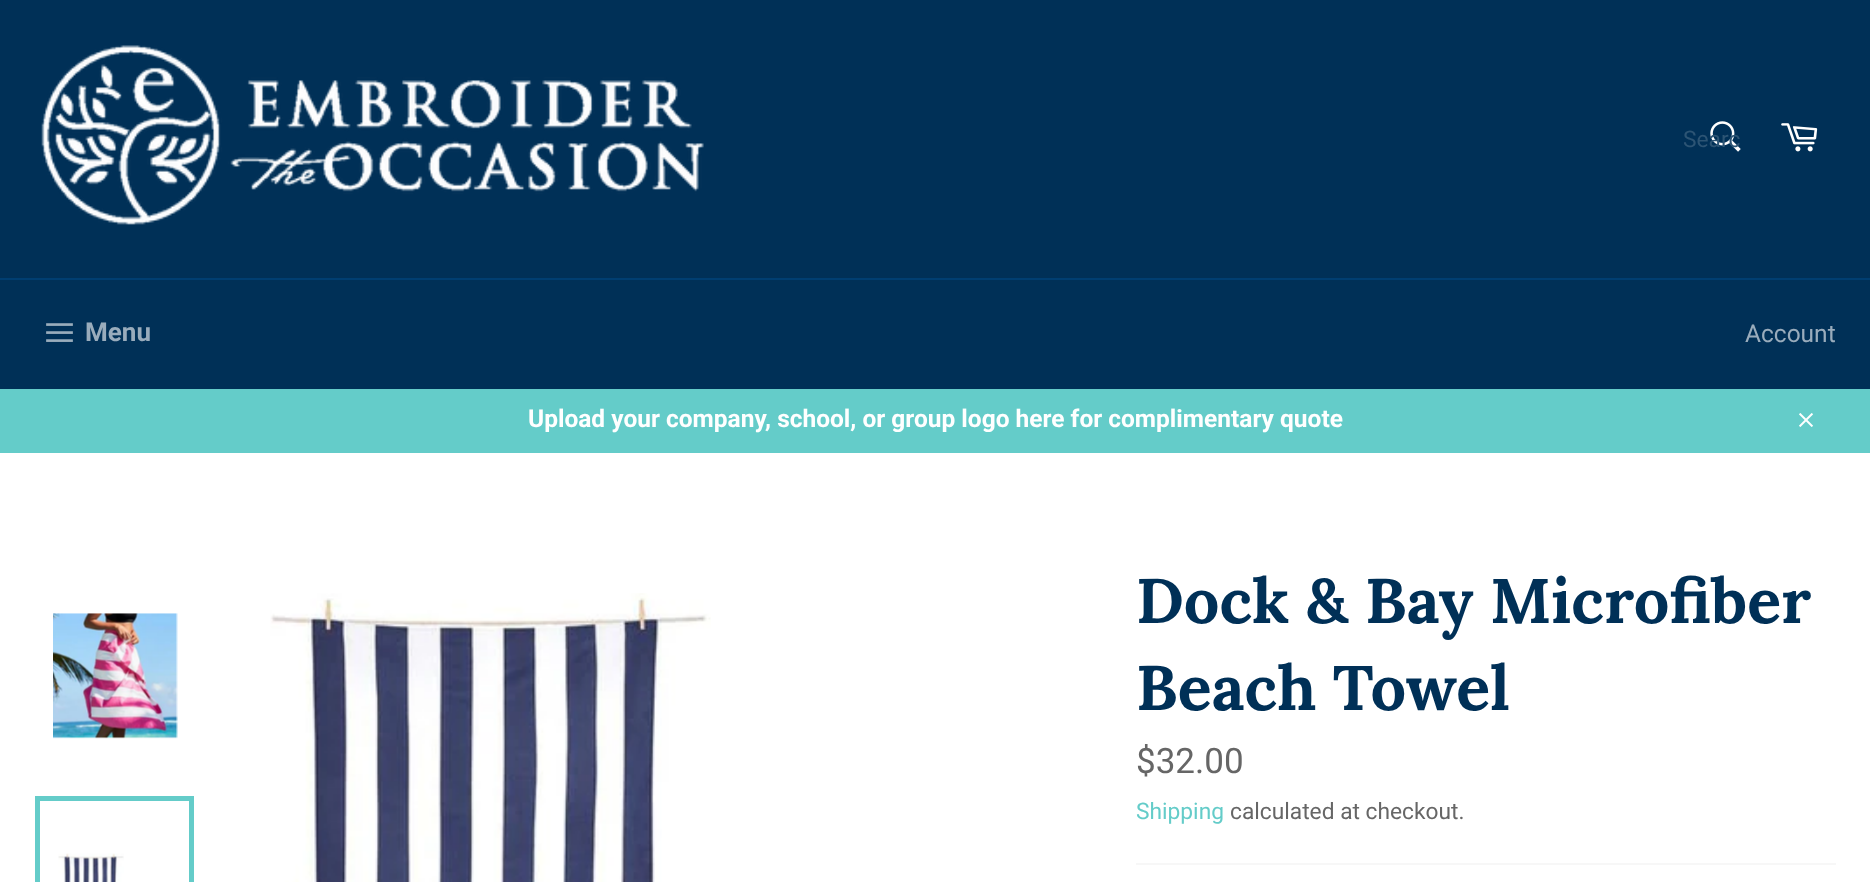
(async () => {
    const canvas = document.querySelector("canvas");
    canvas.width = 1870;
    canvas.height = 882;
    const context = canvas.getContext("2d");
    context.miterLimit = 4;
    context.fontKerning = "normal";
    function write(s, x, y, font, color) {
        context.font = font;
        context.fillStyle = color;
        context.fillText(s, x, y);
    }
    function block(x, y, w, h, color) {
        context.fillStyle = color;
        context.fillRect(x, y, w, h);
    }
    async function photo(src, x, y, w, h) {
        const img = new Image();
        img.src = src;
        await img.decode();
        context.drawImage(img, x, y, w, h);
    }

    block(0, 0, 1870, 882, "rgb(0, 48, 87)");
    await photo("media/1.png", 41, 45, 663, 180);
    await photo("media/2.png", 1710, 121, 31, 31);
    write("Searc", 1683, 147, "22.75px Roboto", "rgb(44, 84, 116)");
    await photo("media/3.png", 1781, 123, 37, 29);
    block(0, 278, 1870, 2, "rgb(0, 62, 113)");
    await photo("media/4.png", 46, 323, 27, 19);
    write("Menu", 85, 341, "bold 26px Roboto", "rgb(153, 172, 188)");
    write("Account", 1745, 342, "24.5px Roboto", "rgb(153, 172, 188)");
    block(0, 389, 1870, 64, "rgb(100, 204, 201)");
    write("Upload your company, school, or group logo here for complimentary quote", 528, 427, "bold 24.5px Roboto", "rgb(255, 255, 255)");
    await photo("media/5.png", 1799, 413, 14, 14);
    block(0, 453, 1870, 429, "rgb(255, 255, 255)");
    await photo("media/6.png", 53, 613, 125, 126);
    await photo("media/7.png", 58, 853, 66, 29);
    context.strokeStyle = "rgb(100, 204, 201)";
    context.lineWidth = 5;
    context.strokeRect(37.5, 798.5, 154, 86);
    await photo("media/8.png", 270, 593, 441, 289);
    write("Dock & Bay Microfiber", 1136, 623, "bold 63px Lora", "rgb(0, 48, 87)");
    write("Beach Towel", 1136, 710, "bold 63px Lora", "rgb(0, 48, 87)");
    write("$32.00", 1136, 773, "35px Roboto", "rgb(102, 102, 102)");
    write("Shipping", 1136, 819, "22.75px Roboto", "rgb(100, 204, 201)");
    write("calculated at checkout.", 1230, 819, "22.75px Roboto", "rgb(102, 102, 102)");
    block(1136, 863, 700, 2, "rgb(247, 247, 247)");
})();
